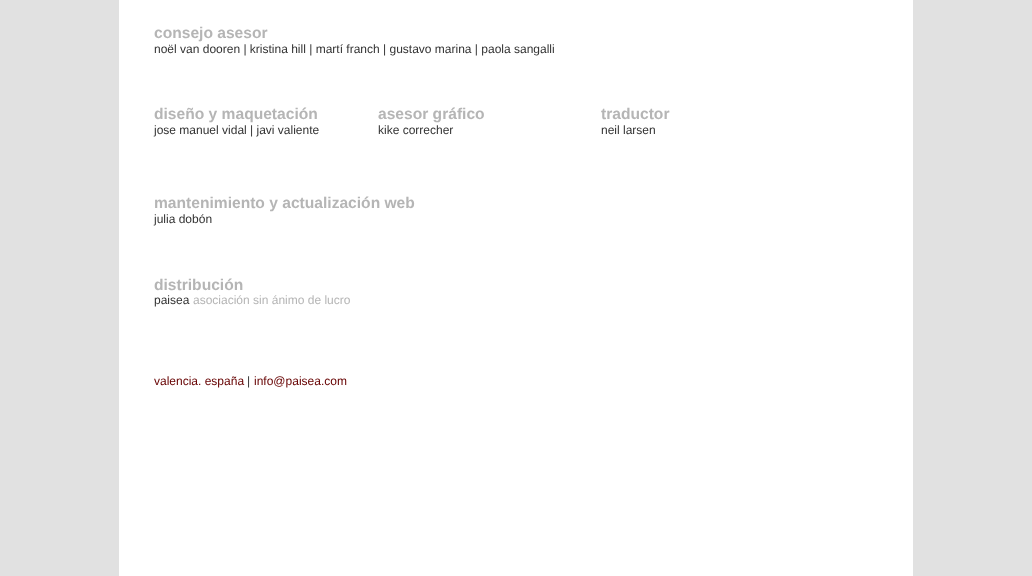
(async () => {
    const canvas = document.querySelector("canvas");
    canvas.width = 1032;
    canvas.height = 576;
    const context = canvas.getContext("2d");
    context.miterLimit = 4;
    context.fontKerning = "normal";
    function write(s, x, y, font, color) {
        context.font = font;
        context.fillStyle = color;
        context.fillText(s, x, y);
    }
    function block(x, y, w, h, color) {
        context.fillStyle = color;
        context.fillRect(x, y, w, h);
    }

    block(0, 0, 1032, 576, "rgb(225, 225, 225)");
    block(119, 0, 794, 576, "rgb(255, 255, 255)");
    write("consejo asesor", 154, 38, "bold 15.6px Liberation Sans", "rgb(181, 181, 181)");
    write("noël van dooren | kristina hill | martí franch | gustavo marina | paola sangalli", 154, 53, "12px Liberation Sans", "rgb(51, 51, 51)");
    write("diseño y maquetación", 154, 119, "bold 15.6px Liberation Sans", "rgb(181, 181, 181)");
    write("asesor gráfico", 378, 119, "bold 15.6px Liberation Sans", "rgb(181, 181, 181)");
    write("traductor", 601, 119, "bold 15.6px Liberation Sans", "rgb(181, 181, 181)");
    write("jose manuel vidal | javi valiente", 154, 134, "12px Liberation Sans", "rgb(51, 51, 51)");
    write("kike correcher", 378, 134, "12px Liberation Sans", "rgb(51, 51, 51)");
    write("neil larsen", 601, 134, "12px Liberation Sans", "rgb(51, 51, 51)");
    write("mantenimiento y actualización web", 154, 208, "bold 15.6px Liberation Sans", "rgb(181, 181, 181)");
    write("julia dobón", 154, 223, "12px Liberation Sans", "rgb(51, 51, 51)");
    write("distribución", 154, 290, "bold 15.6px Liberation Sans", "rgb(181, 181, 181)");
    write("paisea", 154, 304, "12px Liberation Sans", "rgb(51, 51, 51)");
    write("asociación sin ánimo de lucro", 193, 304, "12px Liberation Sans", "rgb(181, 181, 181)");
    write("valencia. españa", 154, 385, "12px Liberation Sans", "rgb(102, 0, 0)");
    write("|", 247, 385, "12px Liberation Sans", "rgb(51, 51, 51)");
    write("info@paisea.com", 254, 385, "12px Liberation Sans", "rgb(102, 0, 0)");
})();
